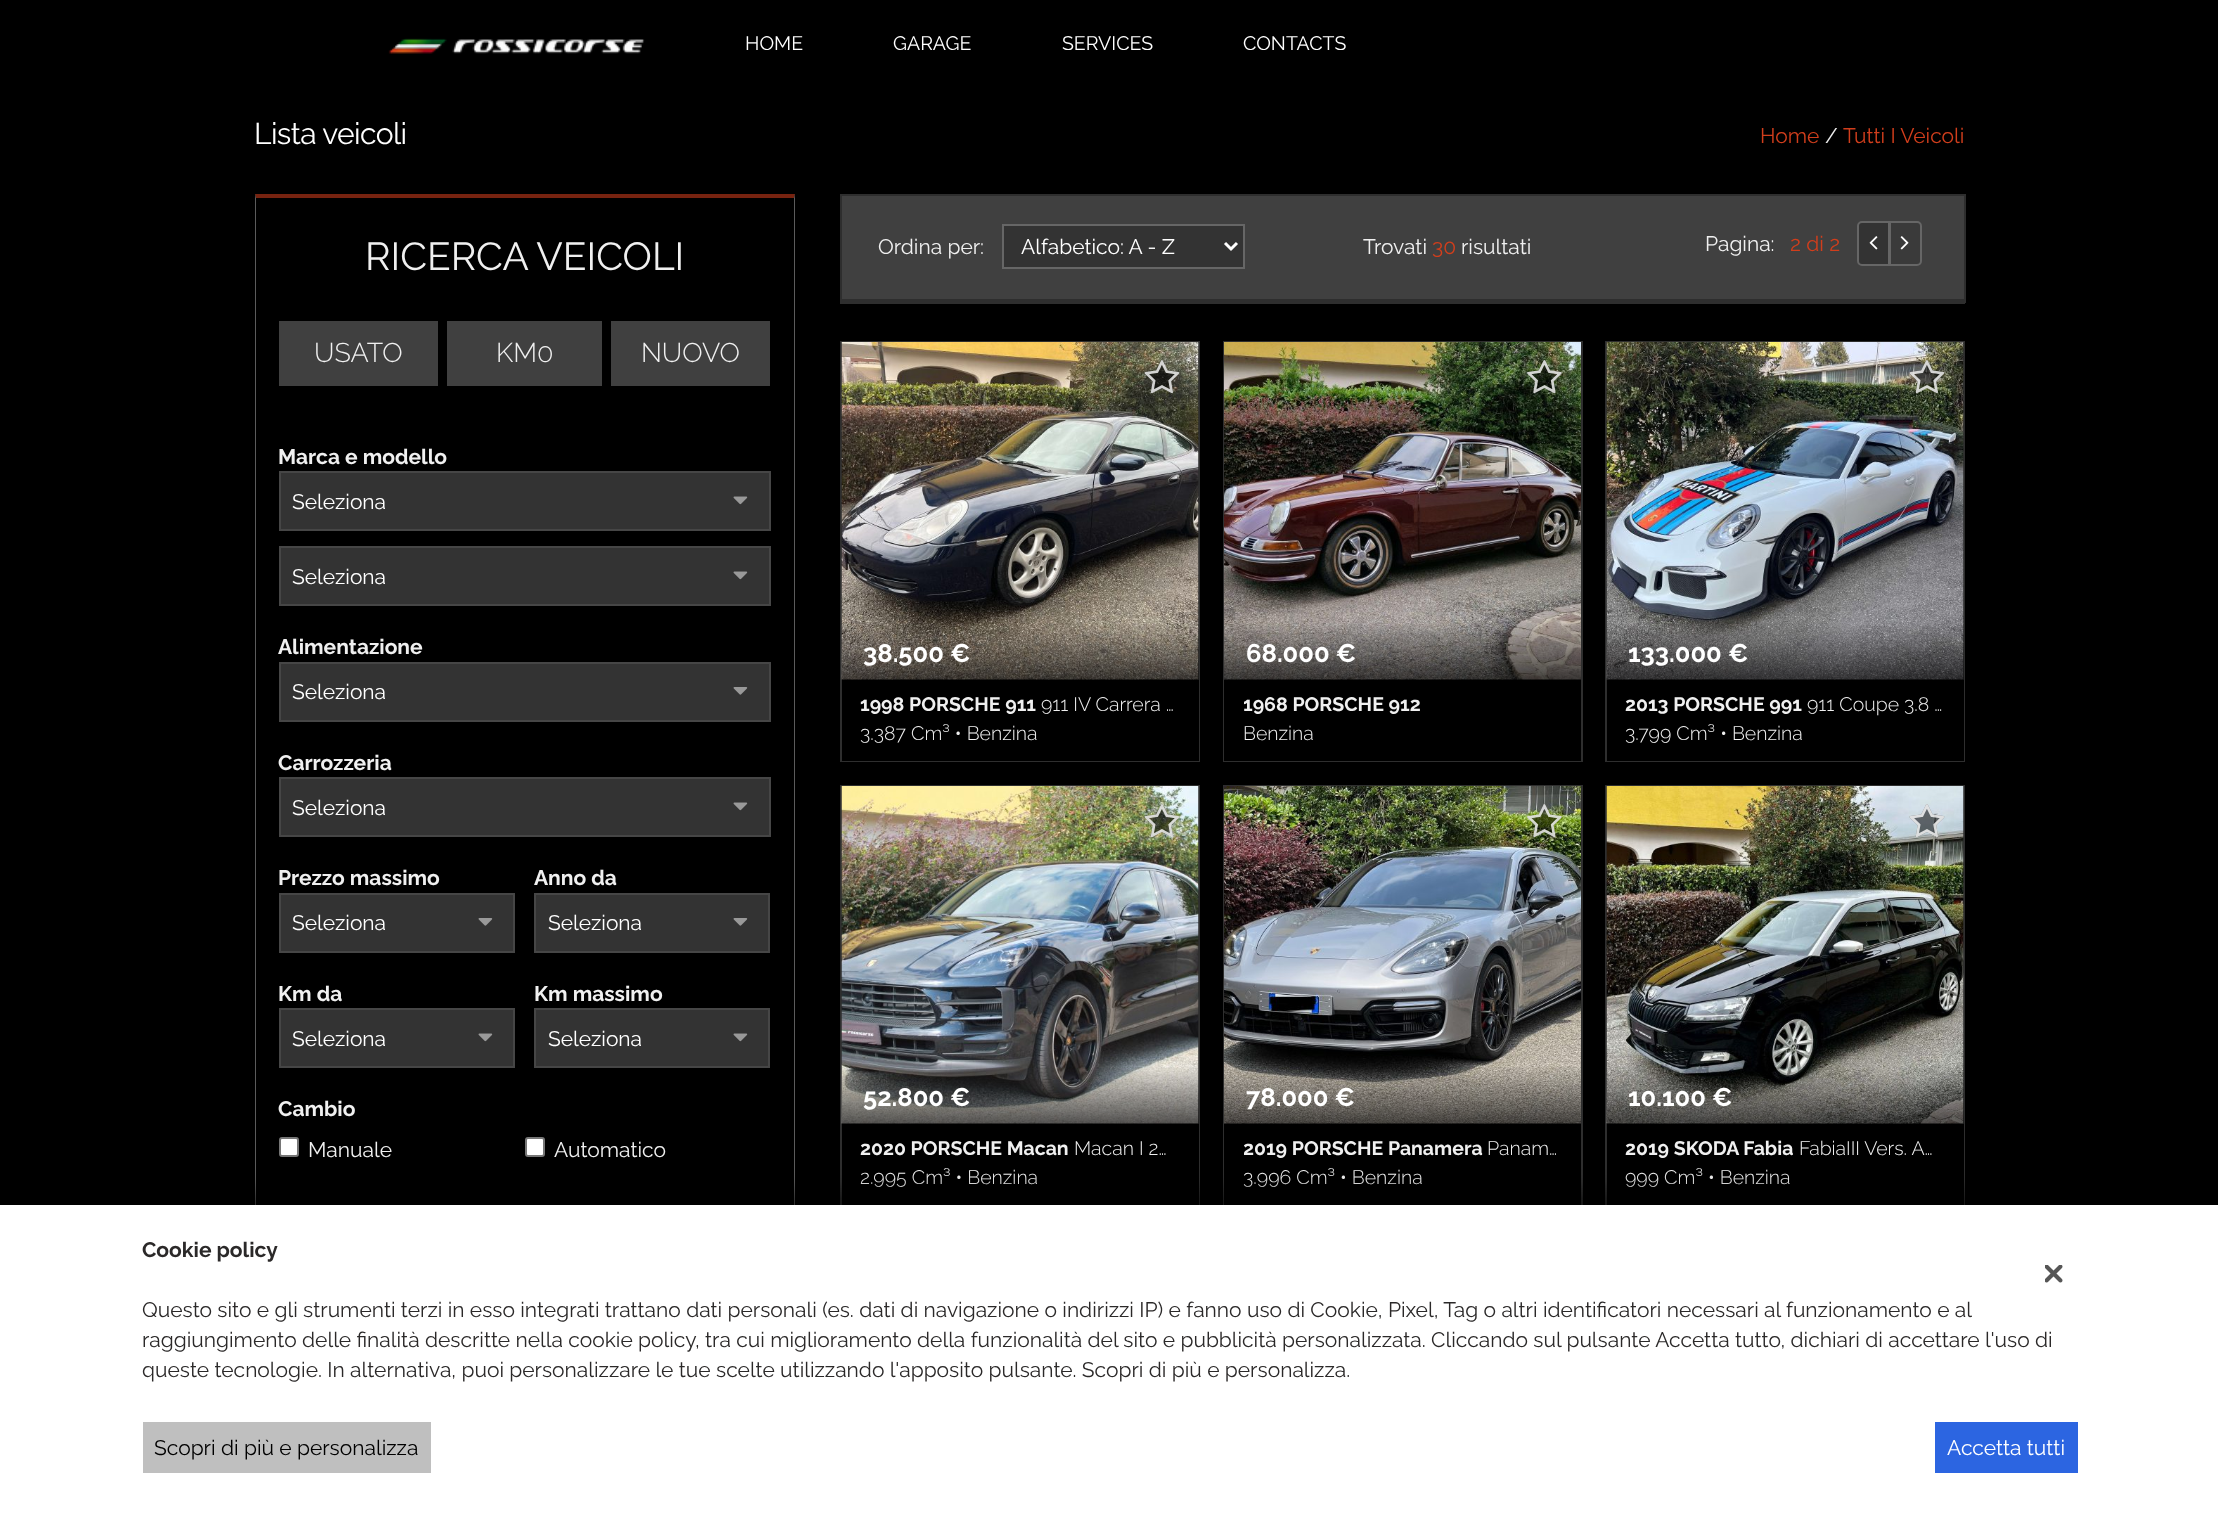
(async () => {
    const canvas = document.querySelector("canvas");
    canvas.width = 2218;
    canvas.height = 1517;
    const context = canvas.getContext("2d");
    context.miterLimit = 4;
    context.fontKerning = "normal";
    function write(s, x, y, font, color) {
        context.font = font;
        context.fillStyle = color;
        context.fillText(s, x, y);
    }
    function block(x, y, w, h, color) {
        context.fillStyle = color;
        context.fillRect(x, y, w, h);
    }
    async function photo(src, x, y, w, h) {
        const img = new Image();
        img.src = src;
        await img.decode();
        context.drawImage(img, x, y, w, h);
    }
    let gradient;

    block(0, 0, 2218, 1517, "rgb(0, 0, 0)");
    await photo("media/1.png", 388, 38, 257, 16);
    write("HOME", 745, 50, "19.5px Raleway", "rgb(255, 255, 255)");
    write("GARAGE", 893, 50, "19.5px Raleway", "rgb(255, 255, 255)");
    write("SERVICES", 1062, 50, "19.5px Raleway", "rgb(255, 255, 255)");
    write("CONTACTS", 1243, 50, "19.5px Raleway", "rgb(255, 255, 255)");
    context.letterSpacing = "-0.6px";
    write("Lista veicoli", 254, 144, "30px Raleway", "rgb(255, 255, 255)");
    context.letterSpacing = "0px";
    write("Home", 1760, 143, "21px Raleway", "rgb(209, 62, 28)");
    write("/", 1825, 143, "21px Raleway", "rgb(240, 240, 240)");
    write("Tutti I Veicoli", 1843, 143, "21px Raleway", "rgb(209, 62, 28)");
    context.fillStyle = "rgb(119, 35, 16)";
    context.beginPath();
    context.moveTo(255, 194);
    context.lineTo(795, 194);
    context.lineTo(794, 198);
    context.lineTo(256, 198);
    context.closePath();
    context.fill();
    context.fillStyle = "rgb(91, 91, 91)";
    context.beginPath();
    context.moveTo(795, 194);
    context.lineTo(795, 1353);
    context.lineTo(794, 1352);
    context.lineTo(794, 198);
    context.closePath();
    context.fill();
    context.beginPath();
    context.moveTo(255, 1353);
    context.lineTo(255, 194);
    context.lineTo(256, 198);
    context.lineTo(256, 1352);
    context.closePath();
    context.fill();
    write("RICERCA VEICOLI", 365, 270, "39px Raleway", "rgb(240, 240, 240)");
    block(279, 321, 159, 65, "rgb(64, 64, 64)");
    write("USATO", 314, 362, "300 27px Raleway", "rgb(240, 240, 240)");
    block(447, 321, 155, 65, "rgb(64, 64, 64)");
    write("KM0", 496, 362, "300 27px Raleway", "rgb(240, 240, 240)");
    block(611, 321, 159, 65, "rgb(64, 64, 64)");
    write("NUOVO", 641, 362, "300 27px Raleway", "rgb(240, 240, 240)");
    write("Marca e modello", 278, 464, "bold 21px Raleway", "rgb(240, 240, 240)");
    context.fillStyle = "rgb(51, 51, 51)";
    context.beginPath();
    context.rect(280, 472, 490, 58);
    context.fill();
    context.strokeStyle = "rgb(70, 70, 70)";
    context.lineWidth = 2;
    context.stroke();
    write("Seleziona", 292, 509, "21px Raleway", "rgb(255, 255, 255)");
    await photo("media/2.png", 733, 496, 15, 9);
    context.fillStyle = "rgb(51, 51, 51)";
    context.beginPath();
    context.rect(280, 547, 490, 58);
    context.fill();
    context.stroke();
    write("Seleziona", 292, 584, "21px Raleway", "rgb(255, 255, 255)");
    await photo("media/2.png", 733, 571, 15, 9);
    write("Alimentazione", 278, 654, "bold 21px Raleway", "rgb(240, 240, 240)");
    context.fillStyle = "rgb(51, 51, 51)";
    context.beginPath();
    context.rect(280, 663, 490, 58);
    context.fill();
    context.stroke();
    write("Seleziona", 292, 699, "21px Raleway", "rgb(255, 255, 255)");
    await photo("media/3.png", 733, 687, 15, 8);
    write("Carrozzeria", 278, 770, "bold 21px Raleway", "rgb(240, 240, 240)");
    context.fillStyle = "rgb(51, 51, 51)";
    context.beginPath();
    context.rect(280, 778, 490, 58);
    context.fill();
    context.stroke();
    write("Seleziona", 292, 815, "21px Raleway", "rgb(255, 255, 255)");
    await photo("media/2.png", 733, 802, 15, 9);
    write("Prezzo massimo", 278, 885, "bold 21px Raleway", "rgb(240, 240, 240)");
    context.fillStyle = "rgb(51, 51, 51)";
    context.beginPath();
    context.rect(280, 894, 234, 58);
    context.fill();
    context.stroke();
    write("Seleziona", 292, 930, "21px Raleway", "rgb(255, 255, 255)");
    await photo("media/3.png", 478, 918, 15, 8);
    write("Anno da", 534, 885, "bold 21px Raleway", "rgb(240, 240, 240)");
    context.fillStyle = "rgb(51, 51, 51)";
    context.beginPath();
    context.rect(535, 894, 234, 58);
    context.fill();
    context.stroke();
    write("Seleziona", 548, 930, "21px Raleway", "rgb(255, 255, 255)");
    await photo("media/3.png", 733, 918, 15, 8);
    write("Km da", 278, 1001, "bold 21px Raleway", "rgb(240, 240, 240)");
    context.fillStyle = "rgb(51, 51, 51)";
    context.beginPath();
    context.rect(280, 1009, 234, 58);
    context.fill();
    context.stroke();
    write("Seleziona", 292, 1046, "21px Raleway", "rgb(255, 255, 255)");
    await photo("media/2.png", 478, 1033, 15, 9);
    write("Km massimo", 534, 1001, "bold 21px Raleway", "rgb(240, 240, 240)");
    context.fillStyle = "rgb(51, 51, 51)";
    context.beginPath();
    context.rect(535, 1009, 234, 58);
    context.fill();
    context.stroke();
    write("Seleziona", 548, 1046, "21px Raleway", "rgb(255, 255, 255)");
    await photo("media/2.png", 733, 1033, 15, 9);
    write("Cambio", 278, 1116, "bold 21px Raleway", "rgb(240, 240, 240)");
    context.fillStyle = "rgb(255, 255, 255)";
    context.beginPath();
    context.roundRect(280, 1138, 18, 18, 2);
    context.fill();
    context.strokeStyle = "rgb(118, 118, 118)";
    context.stroke();
    write("Manuale", 308, 1157, "21px Raleway", "rgb(240, 240, 240)");
    context.fillStyle = "rgb(255, 255, 255)";
    context.beginPath();
    context.roundRect(526, 1138, 18, 18, 2);
    context.fill();
    context.stroke();
    write("Automatico", 554, 1157, "21px Raleway", "rgb(240, 240, 240)");
    block(842, 196, 1122, 103, "rgb(64, 64, 64)");
    block(840, 194, 1125, 2, "rgb(46, 46, 46)");
    block(1964, 194, 2, 109, "rgb(46, 46, 46)");
    block(840, 299, 1125, 5, "rgb(46, 46, 46)");
    block(840, 194, 2, 109, "rgb(46, 46, 46)");
    write("Ordina per:", 878, 254, "21px Raleway", "rgb(240, 240, 240)");
    context.fillStyle = "rgb(51, 51, 51)";
    context.beginPath();
    context.rect(1003, 225, 241, 43);
    context.fill();
    context.strokeStyle = "rgb(102, 102, 102)";
    context.stroke();
    context.beginPath();
    context.moveTo(1225, 243);
    context.lineTo(1231, 249);
    context.lineTo(1237, 243);
    context.strokeStyle = "rgb(255, 255, 255)";
    context.lineWidth = 3;
    context.stroke();
    write("Alfabetico: A - Z", 1021, 254, "21px Raleway", "rgb(255, 255, 255)");
    write("Trovati", 1363, 254, "21px Raleway", "rgb(240, 240, 240)");
    write("30", 1432, 254, "21px Raleway", "rgb(209, 62, 28)");
    write("risultati", 1461, 254, "21px Raleway", "rgb(240, 240, 240)");
    write("Pagina:", 1705, 251, "21px Raleway", "rgb(240, 240, 240)");
    write("2 di 2", 1790, 251, "21px Raleway", "rgb(209, 62, 28)");
    context.fillStyle = "rgb(51, 51, 51)";
    context.beginPath();
    context.roundRect(1858, 222, 31, 43, [4, 0, 0, 4]);
    context.fill();
    context.strokeStyle = "rgb(102, 102, 102)";
    context.lineWidth = 2;
    context.stroke();
    await photo("media/4.png", 1869, 236, 9, 14);
    context.fillStyle = "rgba(51, 51, 51, 0.5)";
    context.beginPath();
    context.roundRect(1890, 222, 31, 43, [0, 4, 4, 0]);
    context.fill();
    context.stroke();
    await photo("media/5.png", 1900, 236, 9, 14);
    context.strokeStyle = "rgb(46, 46, 46)";
    context.strokeRect(841, 342, 358, 419);
    await photo("media/6.png", 841, 342, 358, 338);
    await photo("media/7.png", 1144, 360, 36, 33);
    await photo("media/8.png", 1144, 360, 36, 34);
    block(842, 680, 357, 81, "rgb(0, 0, 0)");
    gradient = context.createLinearGradient(1020, 621, 1020, 680);
    gradient.addColorStop(0, "rgba(0, 0, 0, 0)");
    gradient.addColorStop(1, "rgba(0, 0, 0, 0.65)");
    context.fillStyle = gradient;
    context.fillRect(842, 623, 357, 57);
    write("38.500 €", 863, 662, "bold 25.5px Raleway", "rgb(255, 255, 255)");
    write("1998 PORSCHE 911", 860, 711, "bold 19.5px Raleway", "rgb(240, 240, 240)");
    write("911 IV Carrera …", 1041, 711, "300 19.5px Raleway", "rgb(240, 240, 240)");
    write("3.387 Cm³ • Benzina", 860, 740, "300 19.5px Raleway", "rgb(240, 240, 240)");
    context.strokeRect(1224, 342, 358, 419);
    await photo("media/9.png", 1224, 342, 357, 338);
    await photo("media/10.png", 1527, 360, 35, 34);
    await photo("media/11.png", 1527, 360, 35, 34);
    block(1224, 680, 357, 81, "rgb(0, 0, 0)");
    gradient = context.createLinearGradient(1403, 621, 1403, 680);
    gradient.addColorStop(0, "rgba(0, 0, 0, 0)");
    gradient.addColorStop(1, "rgba(0, 0, 0, 0.65)");
    context.fillStyle = gradient;
    context.fillRect(1224, 623, 357, 57);
    write("68.000 €", 1246, 662, "bold 25.5px Raleway", "rgb(255, 255, 255)");
    context.save();
    context.beginPath();
    context.rect(1244, 690, 318, 30);
    context.clip();
    write("1968 PORSCHE 912", 1243, 711, "bold 19.5px Raleway", "rgb(240, 240, 240)");
    context.restore();
    write("Benzina", 1243, 740, "300 19.5px Raleway", "rgb(240, 240, 240)");
    context.strokeRect(1606, 342, 358, 419);
    await photo("media/12.png", 1606, 342, 358, 338);
    await photo("media/13.png", 1909, 360, 36, 34);
    await photo("media/14.png", 1909, 360, 36, 34);
    block(1607, 680, 357, 81, "rgb(0, 0, 0)");
    gradient = context.createLinearGradient(1785, 621, 1785, 680);
    gradient.addColorStop(0, "rgba(0, 0, 0, 0)");
    gradient.addColorStop(1, "rgba(0, 0, 0, 0.65)");
    context.fillStyle = gradient;
    context.fillRect(1607, 623, 357, 57);
    write("133.000 €", 1628, 662, "bold 25.5px Raleway", "rgb(255, 255, 255)");
    write("2013 PORSCHE 991", 1625, 711, "bold 19.5px Raleway", "rgb(240, 240, 240)");
    write("911 Coupe 3.8 …", 1807, 711, "300 19.5px Raleway", "rgb(240, 240, 240)");
    write("3.799 Cm³ • Benzina", 1625, 740, "300 19.5px Raleway", "rgb(240, 240, 240)");
    context.strokeRect(841, 786, 358, 419);
    await photo("media/15.png", 841, 786, 358, 338);
    await photo("media/16.png", 1144, 804, 36, 34);
    await photo("media/17.png", 1144, 804, 36, 34);
    block(842, 1124, 357, 81, "rgb(0, 0, 0)");
    gradient = context.createLinearGradient(1020, 1065, 1020, 1124);
    gradient.addColorStop(0, "rgba(0, 0, 0, 0)");
    gradient.addColorStop(1, "rgba(0, 0, 0, 0.65)");
    context.fillStyle = gradient;
    context.fillRect(842, 1067, 357, 57);
    write("52.800 €", 863, 1106, "bold 25.5px Raleway", "rgb(255, 255, 255)");
    write("2020 PORSCHE Macan", 860, 1155, "bold 19.5px Raleway", "rgb(240, 240, 240)");
    write("Macan I 2…", 1074, 1155, "300 19.5px Raleway", "rgb(240, 240, 240)");
    write("2.995 Cm³ • Benzina", 860, 1184, "300 19.5px Raleway", "rgb(240, 240, 240)");
    context.strokeRect(1224, 786, 358, 419);
    await photo("media/18.png", 1224, 786, 357, 338);
    await photo("media/19.png", 1527, 804, 35, 34);
    await photo("media/20.png", 1527, 804, 35, 34);
    block(1224, 1124, 357, 81, "rgb(0, 0, 0)");
    gradient = context.createLinearGradient(1403, 1065, 1403, 1124);
    gradient.addColorStop(0, "rgba(0, 0, 0, 0)");
    gradient.addColorStop(1, "rgba(0, 0, 0, 0.65)");
    context.fillStyle = gradient;
    context.fillRect(1224, 1067, 357, 57);
    write("78.000 €", 1246, 1106, "bold 25.5px Raleway", "rgb(255, 255, 255)");
    context.save();
    context.beginPath();
    context.rect(1244, 1134, 318, 30);
    context.clip();
    write("2019 PORSCHE Panamera", 1243, 1155, "bold 19.5px Raleway", "rgb(240, 240, 240)");
    context.restore();
    write("Panam…", 1487, 1155, "300 19.5px Raleway", "rgb(240, 240, 240)");
    write("3.996 Cm³ • Benzina", 1243, 1184, "300 19.5px Raleway", "rgb(240, 240, 240)");
    context.strokeRect(1606, 786, 358, 419);
    await photo("media/21.png", 1606, 786, 358, 338);
    await photo("media/22.png", 1909, 804, 36, 34);
    await photo("media/23.png", 1909, 804, 36, 34);
    block(1607, 1124, 357, 81, "rgb(0, 0, 0)");
    gradient = context.createLinearGradient(1785, 1065, 1785, 1124);
    gradient.addColorStop(0, "rgba(0, 0, 0, 0)");
    gradient.addColorStop(1, "rgba(0, 0, 0, 0.65)");
    context.fillStyle = gradient;
    context.fillRect(1607, 1067, 357, 57);
    write("10.100 €", 1628, 1106, "bold 25.5px Raleway", "rgb(255, 255, 255)");
    write("2019 SKODA Fabia", 1625, 1155, "bold 19.5px Raleway", "rgb(240, 240, 240)");
    write("FabiaIII Vers. A…", 1799, 1155, "300 19.5px Raleway", "rgb(240, 240, 240)");
    write("999 Cm³ • Benzina", 1625, 1184, "300 19.5px Raleway", "rgb(240, 240, 240)");
    context.fillStyle = "rgba(0, 0, 0, 0.5)";
    context.filter = "blur(9px)";
    context.beginPath();
    context.rect(0, 1190, 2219, 313);
    context.fill();
    context.filter = "none";
    block(0, 1205, 2218, 312, "rgb(255, 255, 255)");
    write("Cookie policy", 142, 1257, "bold 21px Raleway", "rgb(43, 41, 41)");
    write("Questo sito e gli strumenti terzi in esso integrati trattano dati personali (es. dati di navigazione o indirizzi IP) e fanno uso di Cookie, Pixel, Tag o altri identificatori necessari al funzionamento e al", 142, 1317, "21px Raleway", "rgb(43, 41, 41)");
    write("raggiungimento delle finalità descritte nella cookie policy, tra cui miglioramento della funzionalità del sito e pubblicità personalizzata. Cliccando sul pulsante Accetta tutto, dichiari di accettare l'uso di", 142, 1347, "21px Raleway", "rgb(43, 41, 41)");
    write("queste tecnologie. In alternativa, puoi personalizzare le tue scelte utilizzando l'apposito pulsante. Scopri di più e personalizza.", 142, 1377, "21px Raleway", "rgb(43, 41, 41)");
    block(143, 1422, 288, 51, "rgb(191, 191, 191)");
    write("Scopri di più e personalizza", 154, 1455, "21px Raleway", "rgb(0, 0, 0)");
    block(1935, 1422, 143, 51, "rgb(44, 101, 225)");
    write("Accetta tutti", 1947, 1455, "21px Raleway", "rgb(255, 255, 255)");
    await photo("media/24.png", 2045, 1265, 18, 18);
})();
